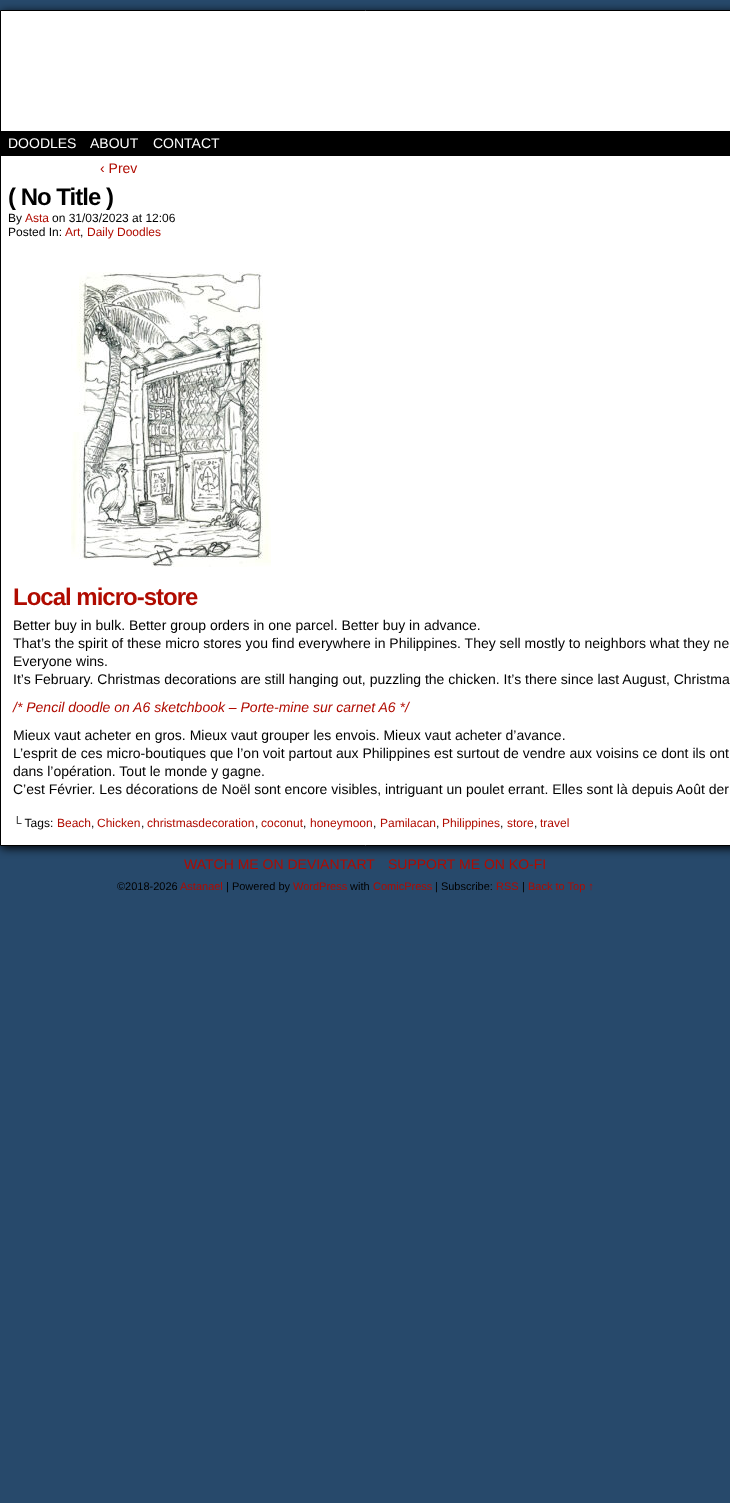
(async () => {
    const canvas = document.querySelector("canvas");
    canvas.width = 730;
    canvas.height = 1503;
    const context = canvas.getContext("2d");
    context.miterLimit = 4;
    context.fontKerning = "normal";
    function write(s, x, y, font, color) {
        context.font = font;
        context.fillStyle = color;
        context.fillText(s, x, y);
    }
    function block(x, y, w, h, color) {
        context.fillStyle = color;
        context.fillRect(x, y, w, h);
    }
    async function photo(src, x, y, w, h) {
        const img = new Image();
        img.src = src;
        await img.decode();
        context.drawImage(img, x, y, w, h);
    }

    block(0, 0, 730, 1503, "rgb(39, 73, 107)");
    context.fillStyle = "rgb(0, 0, 0)";
    context.filter = "blur(5px)";
    context.beginPath();
    context.rect(1, 12, 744, 836);
    context.fill();
    context.filter = "none";
    context.fillStyle = "rgb(255, 255, 255)";
    context.beginPath();
    context.rect(0.5, 10.5, 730, 835);
    context.fill();
    context.strokeStyle = "rgb(0, 0, 0)";
    context.stroke();
    block(1, 131, 729, 25, "rgb(0, 0, 0)");
    write("DOODLES", 8, 148, "14px Liberation Sans", "rgb(255, 255, 255)");
    write("ABOUT", 90, 148, "14px Liberation Sans", "rgb(255, 255, 255)");
    write("CONTACT", 153, 148, "14px Liberation Sans", "rgb(255, 255, 255)");
    write("‹ Prev", 100, 173, "14px Liberation Sans", "rgb(176, 11, 0)");
    context.letterSpacing = "-1px";
    write("( No Title )", 8, 205, "bold 24px Liberation Sans", "rgb(0, 0, 0)");
    context.letterSpacing = "0px";
    write("By", 8, 222, "12px Liberation Sans", "rgb(0, 0, 0)");
    write("Asta", 25, 222, "12px Liberation Sans", "rgb(176, 11, 0)");
    write("on 31/03/2023 at 12:06", 52, 222, "12px Liberation Sans", "rgb(0, 0, 0)");
    write("Posted In:", 8, 236, "12px Liberation Sans", "rgb(0, 0, 0)");
    write("Art", 65, 236, "12px Liberation Sans", "rgb(176, 11, 0)");
    write(",", 80, 236, "12px Liberation Sans", "rgb(0, 0, 0)");
    write("Daily Doodles", 87, 236, "12px Liberation Sans", "rgb(176, 11, 0)");
    await photo("media/1.png", 71, 272, 200, 295);
    context.letterSpacing = "-1px";
    write("Local micro-store", 13, 605, "bold 24px Liberation Sans", "rgb(176, 11, 0)");
    context.letterSpacing = "0px";
    write("Better buy in bulk. Better group orders in one parcel. Better buy in advance.", 13, 630, "14px Liberation Sans", "rgb(0, 0, 0)");
    write("That’s the spirit of these micro stores you find everywhere in Philippines. They sell mostly to neighbors what they ne", 13, 648, "14px Liberation Sans", "rgb(0, 0, 0)");
    write("Everyone wins.", 13, 666, "14px Liberation Sans", "rgb(0, 0, 0)");
    write("It’s February. Christmas decorations are still hanging out, puzzling the chicken. It’s there since last August, Christma", 13, 684, "14px Liberation Sans", "rgb(0, 0, 0)");
    write("/* Pencil doodle on A6 sketchbook – Porte-mine sur carnet A6 */", 13, 712, "italic 14px Liberation Sans", "rgb(176, 11, 0)");
    write("Mieux vaut acheter en gros. Mieux vaut grouper les envois. Mieux vaut acheter d’avance.", 13, 740, "14px Liberation Sans", "rgb(0, 0, 0)");
    write("L’esprit de ces micro-boutiques que l’on voit partout aux Philippines est surtout de vendre aux voisins ce dont ils ont", 13, 758, "14px Liberation Sans", "rgb(0, 0, 0)");
    write("dans l’opération. Tout le monde y gagne.", 13, 776, "14px Liberation Sans", "rgb(0, 0, 0)");
    write("C’est Février. Les décorations de Noël sont encore visibles, intriguant un poulet errant. Elles sont là depuis Août der", 13, 794, "14px Liberation Sans", "rgb(0, 0, 0)");
    write("└ Tags:", 13, 827, "12px Liberation Sans", "rgb(0, 0, 0)");
    write("Beach", 57, 827, "12px Liberation Sans", "rgb(176, 11, 0)");
    write(",", 91, 827, "12px Liberation Sans", "rgb(0, 0, 0)");
    write("Chicken", 97, 827, "12px Liberation Sans", "rgb(176, 11, 0)");
    write(",", 141, 827, "12px Liberation Sans", "rgb(0, 0, 0)");
    write("christmasdecoration", 147, 827, "12px Liberation Sans", "rgb(176, 11, 0)");
    write(",", 255, 827, "12px Liberation Sans", "rgb(0, 0, 0)");
    write("coconut", 261, 827, "12px Liberation Sans", "rgb(176, 11, 0)");
    write(",", 303, 827, "12px Liberation Sans", "rgb(0, 0, 0)");
    write("honeymoon", 310, 827, "12px Liberation Sans", "rgb(176, 11, 0)");
    write(",", 373, 827, "12px Liberation Sans", "rgb(0, 0, 0)");
    write("Pamilacan", 380, 827, "12px Liberation Sans", "rgb(176, 11, 0)");
    write(",", 436, 827, "12px Liberation Sans", "rgb(0, 0, 0)");
    write("Philippines", 442, 827, "12px Liberation Sans", "rgb(176, 11, 0)");
    write(",", 500, 827, "12px Liberation Sans", "rgb(0, 0, 0)");
    write("store", 507, 827, "12px Liberation Sans", "rgb(176, 11, 0)");
    write(",", 534, 827, "12px Liberation Sans", "rgb(0, 0, 0)");
    write("travel", 540, 827, "12px Liberation Sans", "rgb(176, 11, 0)");
    write("WATCH ME ON DEVIANTART", 184, 869, "14px Liberation Sans", "rgb(176, 11, 0)");
    write("SUPPORT ME ON KO-FI", 388, 869, "14px Liberation Sans", "rgb(176, 11, 0)");
    write("©2018-2026", 117, 890, "11px Liberation Sans", "rgb(0, 0, 0)");
    write("Astanael", 180, 890, "11px Liberation Sans", "rgb(176, 11, 0)");
    write("| Powered by", 226, 890, "11px Liberation Sans", "rgb(0, 0, 0)");
    write("WordPress", 293, 890, "11px Liberation Sans", "rgb(176, 11, 0)");
    write("with", 350, 890, "11px Liberation Sans", "rgb(0, 0, 0)");
    write("ComicPress", 373, 890, "11px Liberation Sans", "rgb(176, 11, 0)");
    write("| Subscribe:", 435, 890, "11px Liberation Sans", "rgb(0, 0, 0)");
    write("RSS", 496, 890, "11px Liberation Sans", "rgb(176, 11, 0)");
    write("|", 522, 890, "11px Liberation Sans", "rgb(0, 0, 0)");
    write("Back to Top ↑", 528, 890, "11px Liberation Sans", "rgb(176, 11, 0)");
})();
